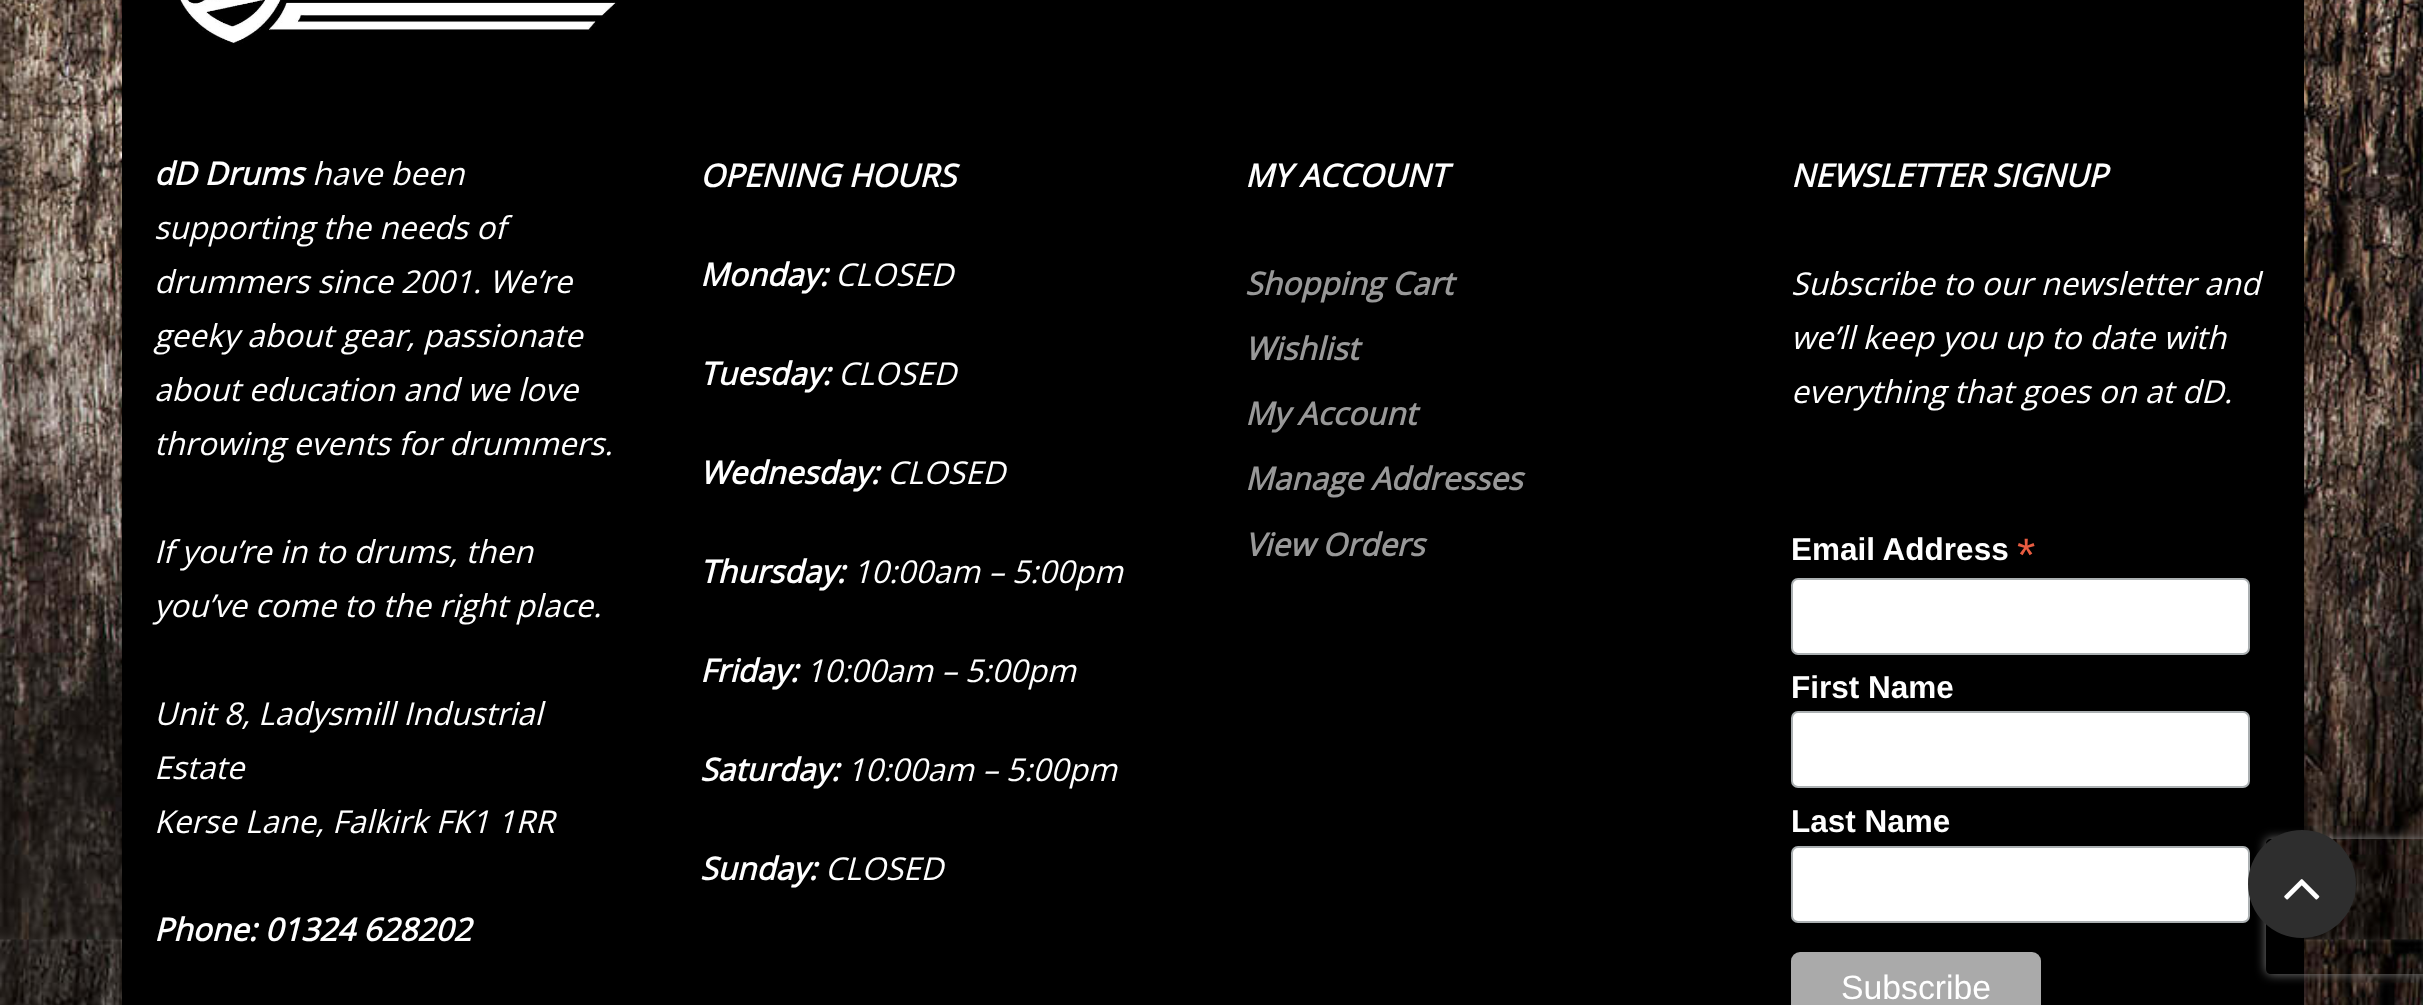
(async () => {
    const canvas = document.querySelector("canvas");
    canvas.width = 2423;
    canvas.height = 1005;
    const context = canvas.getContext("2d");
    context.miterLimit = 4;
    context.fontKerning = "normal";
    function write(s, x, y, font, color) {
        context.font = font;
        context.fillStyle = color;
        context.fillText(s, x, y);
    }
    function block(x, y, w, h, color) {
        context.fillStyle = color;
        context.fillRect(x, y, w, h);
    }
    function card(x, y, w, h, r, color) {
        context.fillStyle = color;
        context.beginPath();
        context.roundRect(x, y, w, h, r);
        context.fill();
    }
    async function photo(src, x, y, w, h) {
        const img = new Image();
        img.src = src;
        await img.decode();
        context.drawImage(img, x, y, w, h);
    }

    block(0, 0, 2423, 1005, "rgb(255, 255, 255)");
    await photo("media/1.png", 0, 0, 2423, 1005);
    block(122, 0, 2182, 1005, "rgb(0, 0, 0)");
    await photo("media/2.png", 180, 0, 437, 44);
    write("dD Drums", 154, 185, "italic bold 31.5px Open Sans", "rgb(255, 255, 255)");
    write("have been", 312, 185, "italic 31.5px Open Sans", "rgb(255, 255, 255)");
    write("supporting the needs of", 154, 239, "italic 31.5px Open Sans", "rgb(255, 255, 255)");
    write("drummers since 2001. We’re", 154, 293, "italic 31.5px Open Sans", "rgb(255, 255, 255)");
    write("geeky about gear, passionate", 154, 347, "italic 31.5px Open Sans", "rgb(255, 255, 255)");
    write("about education and we love", 154, 401, "italic 31.5px Open Sans", "rgb(255, 255, 255)");
    write("throwing events for drummers.", 154, 455, "italic 31.5px Open Sans", "rgb(255, 255, 255)");
    write("If you’re in to drums, then", 154, 563, "italic 31.5px Open Sans", "rgb(255, 255, 255)");
    write("you’ve come to the right place.", 154, 617, "italic 31.5px Open Sans", "rgb(255, 255, 255)");
    write("Unit 8, Ladysmill Industrial", 154, 725, "italic 31.5px Open Sans", "rgb(255, 255, 255)");
    write("Estate", 154, 779, "italic 31.5px Open Sans", "rgb(255, 255, 255)");
    write("Kerse Lane, Falkirk FK1 1RR", 154, 833, "italic 31.5px Open Sans", "rgb(255, 255, 255)");
    write("Phone: 01324 628202", 154, 941, "italic bold 31.5px Open Sans", "rgb(255, 255, 255)");
    write("OPENING HOURS", 700, 187, "italic bold 31.5px Open Sans", "rgb(255, 255, 255)");
    write("Monday:", 700, 286, "italic bold 31.5px Open Sans", "rgb(255, 255, 255)");
    write("CLOSED", 835, 286, "italic 31.5px Open Sans", "rgb(255, 255, 255)");
    write("Tuesday:", 700, 385, "italic bold 31.5px Open Sans", "rgb(255, 255, 255)");
    write("CLOSED", 838, 385, "italic 31.5px Open Sans", "rgb(255, 255, 255)");
    write("Wednesday:", 700, 484, "italic bold 31.5px Open Sans", "rgb(255, 255, 255)");
    write("CLOSED", 887, 484, "italic 31.5px Open Sans", "rgb(255, 255, 255)");
    write("Thursday:", 700, 583, "italic bold 31.5px Open Sans", "rgb(255, 255, 255)");
    write("10:00am – 5:00pm", 853, 583, "italic 31.5px Open Sans", "rgb(255, 255, 255)");
    write("Friday:", 700, 682, "italic bold 31.5px Open Sans", "rgb(255, 255, 255)");
    write("10:00am – 5:00pm", 806, 682, "italic 31.5px Open Sans", "rgb(255, 255, 255)");
    write("Saturday:", 700, 781, "italic bold 31.5px Open Sans", "rgb(255, 255, 255)");
    write("10:00am – 5:00pm", 847, 781, "italic 31.5px Open Sans", "rgb(255, 255, 255)");
    write("Sunday:", 700, 880, "italic bold 31.5px Open Sans", "rgb(255, 255, 255)");
    write("CLOSED", 825, 880, "italic 31.5px Open Sans", "rgb(255, 255, 255)");
    write("MY ACCOUNT", 1245, 187, "italic bold 31.5px Open Sans", "rgb(255, 255, 255)");
    write("Shopping Cart", 1245, 295, "italic bold 31.5px Open Sans", "rgb(152, 152, 152)");
    write("Wishlist", 1245, 360, "italic bold 31.5px Open Sans", "rgb(152, 152, 152)");
    write("My Account", 1245, 425, "italic bold 31.5px Open Sans", "rgb(152, 152, 152)");
    write("Manage Addresses", 1245, 490, "italic bold 31.5px Open Sans", "rgb(152, 152, 152)");
    write("View Orders", 1245, 556, "italic bold 31.5px Open Sans", "rgb(152, 152, 152)");
    write("NEWSLETTER SIGNUP", 1791, 187, "italic bold 31.5px Open Sans", "rgb(255, 255, 255)");
    write("Subscribe to our newsletter and", 1791, 295, "italic 31.5px Open Sans", "rgb(255, 255, 255)");
    write("we’ll keep you up to date with", 1791, 349, "italic 31.5px Open Sans", "rgb(255, 255, 255)");
    write("everything that goes on at dD.", 1791, 403, "italic 31.5px Open Sans", "rgb(255, 255, 255)");
    write("Email Address", 1791, 560, "bold 31.5px Liberation Sans", "rgb(255, 255, 255)");
    write("*", 2017, 571, "47px Liberation Sans", "rgb(232, 92, 65)");
    context.fillStyle = "rgb(255, 255, 255)";
    context.beginPath();
    context.roundRect(1792, 579, 457, 75, 6);
    context.fill();
    context.strokeStyle = "rgb(171, 176, 178)";
    context.lineWidth = 2;
    context.stroke();
    write("First Name", 1791, 698, "bold 31.5px Liberation Sans", "rgb(255, 255, 255)");
    context.beginPath();
    context.roundRect(1792, 712, 457, 75, 6);
    context.fill();
    context.stroke();
    write("Last Name", 1791, 832, "bold 31.5px Liberation Sans", "rgb(255, 255, 255)");
    context.beginPath();
    context.roundRect(1792, 847, 457, 75, 6);
    context.fill();
    context.stroke();
    card(1791, 952, 250, 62, 9, "rgb(170, 170, 170)");
    write("Subscribe", 1841, 999, "33.75px Liberation Sans", "rgb(255, 255, 255)");
    context.save();
    context.beginPath();
    context.moveTo(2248, 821);
    context.lineTo(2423, 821);
    context.lineTo(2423, 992);
    context.lineTo(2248, 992);
    context.closePath();
    context.moveTo(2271, 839);
    context.lineTo(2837, 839);
    context.bezierCurveTo(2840, 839, 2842, 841, 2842, 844);
    context.lineTo(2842, 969);
    context.bezierCurveTo(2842, 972, 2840, 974, 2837, 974);
    context.lineTo(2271, 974);
    context.bezierCurveTo(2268, 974, 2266, 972, 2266, 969);
    context.lineTo(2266, 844);
    context.bezierCurveTo(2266, 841, 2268, 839, 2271, 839);
    context.closePath();
    context.clip("evenodd");
    context.fillStyle = "rgb(128, 128, 128)";
    context.filter = "blur(5.5px)";
    context.beginPath();
    context.roundRect(2266, 839, 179, 135, 5);
    context.fill();
    context.filter = "none";
    context.restore();
    context.fillStyle = "rgb(46, 46, 46)";
    context.beginPath();
    context.arc(2302, 884, 54, 0, Math.PI * 2);
    context.fill();
    await photo("media/3.png", 2284, 879, 36, 21);
})();
